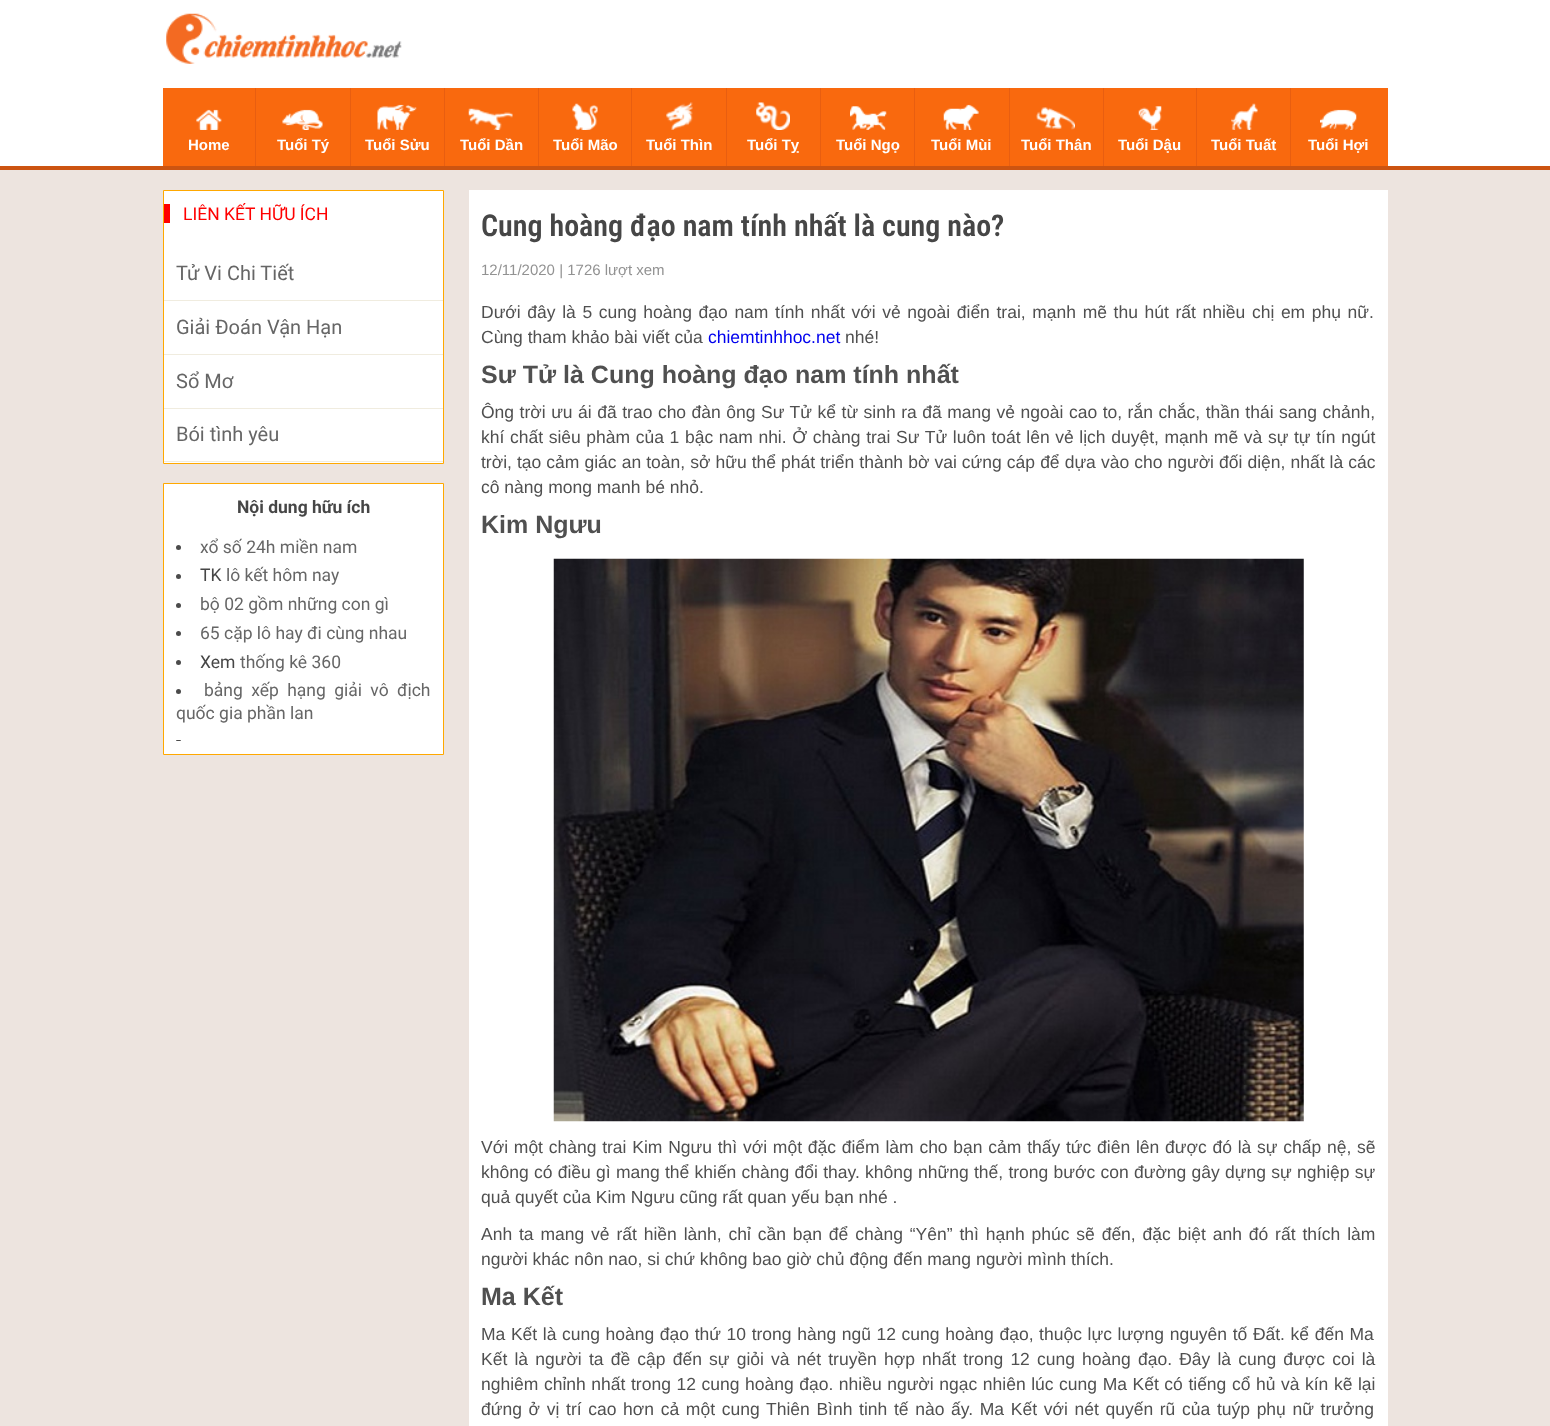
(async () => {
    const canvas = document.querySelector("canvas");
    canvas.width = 1550;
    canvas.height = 1426;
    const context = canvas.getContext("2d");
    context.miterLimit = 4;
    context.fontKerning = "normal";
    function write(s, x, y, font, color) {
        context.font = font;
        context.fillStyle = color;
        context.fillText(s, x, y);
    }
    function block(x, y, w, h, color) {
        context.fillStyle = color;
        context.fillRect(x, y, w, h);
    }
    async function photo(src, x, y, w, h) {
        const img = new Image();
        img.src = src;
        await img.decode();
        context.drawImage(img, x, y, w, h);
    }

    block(0, 0, 1550, 1426, "rgb(237, 228, 223)");
    block(0, 0, 1550, 166, "rgb(255, 255, 255)");
    block(0, 166, 1550, 4, "rgb(204, 84, 17)");
    await photo("media/1.png", 166, 13, 236, 51);
    block(163, 88, 1225, 78, "rgb(249, 105, 14)");
    block(255, 88, 1, 78, "rgb(232, 94, 16)");
    await photo("media/2.png", 196, 109, 26, 21);
    write("Home", 188, 150, "bold 15px Liberation Sans", "rgb(255, 255, 255)");
    block(350, 88, 1, 78, "rgb(232, 94, 16)");
    await photo("media/3.png", 282, 109, 41, 21);
    write("Tuổi Tý", 277, 150, "bold 15px Liberation Sans", "rgb(255, 255, 255)");
    block(444, 88, 1, 78, "rgb(232, 94, 16)");
    await photo("media/4.png", 377, 104, 40, 26);
    write("Tuổi Sửu", 365, 150, "bold 15px Liberation Sans", "rgb(255, 255, 255)");
    block(538, 88, 1, 78, "rgb(232, 94, 16)");
    await photo("media/5.png", 468, 108, 45, 22);
    write("Tuổi Dần", 460, 150, "bold 15px Liberation Sans", "rgb(255, 255, 255)");
    block(631, 88, 1, 78, "rgb(232, 94, 16)");
    await photo("media/6.png", 572, 103, 26, 27);
    write("Tuổi Mão", 553, 150, "bold 15px Liberation Sans", "rgb(255, 255, 255)");
    block(726, 88, 1, 78, "rgb(232, 94, 16)");
    await photo("media/7.png", 666, 102, 27, 28);
    write("Tuổi Thìn", 646, 150, "bold 15px Liberation Sans", "rgb(255, 255, 255)");
    block(820, 88, 1, 78, "rgb(232, 94, 16)");
    await photo("media/8.png", 756, 102, 34, 28);
    write("Tuổi Tỵ", 747, 150, "bold 15px Liberation Sans", "rgb(255, 255, 255)");
    block(914, 88, 1, 78, "rgb(232, 94, 16)");
    await photo("media/9.png", 850, 106, 37, 24);
    write("Tuổi Ngọ", 836, 150, "bold 15px Liberation Sans", "rgb(255, 255, 255)");
    block(1009, 88, 1, 78, "rgb(232, 94, 16)");
    await photo("media/10.png", 943, 104, 36, 26);
    write("Tuổi Mùi", 931, 150, "bold 15px Liberation Sans", "rgb(255, 255, 255)");
    block(1103, 88, 1, 78, "rgb(232, 94, 16)");
    await photo("media/11.png", 1036, 107, 39, 23);
    write("Tuổi Thân", 1021, 150, "bold 15px Liberation Sans", "rgb(255, 255, 255)");
    block(1196, 88, 1, 78, "rgb(232, 94, 16)");
    await photo("media/12.png", 1138, 106, 24, 24);
    write("Tuổi Dậu", 1118, 150, "bold 15px Liberation Sans", "rgb(255, 255, 255)");
    block(1290, 88, 1, 78, "rgb(232, 94, 16)");
    await photo("media/13.png", 1231, 103, 27, 27);
    write("Tuổi Tuất", 1211, 150, "bold 15px Liberation Sans", "rgb(255, 255, 255)");
    await photo("media/14.png", 1320, 109, 37, 21);
    write("Tuổi Hợi", 1308, 150, "bold 15px Liberation Sans", "rgb(255, 255, 255)");
    context.beginPath();
    context.rect(163.5, 190.5, 280, 273);
    context.fill();
    context.strokeStyle = "rgb(255, 168, 0)";
    context.stroke();
    block(164, 204, 6, 19, "rgb(255, 0, 0)");
    write("LIÊN KẾT HỮU ÍCH", 183, 220, "17.5px Roboto", "rgb(255, 0, 0)");
    block(164, 300, 279, 1, "rgb(240, 236, 223)");
    write("Tử Vi Chi Tiết", 176, 280, "20px Roboto", "rgb(102, 102, 102)");
    block(164, 354, 279, 1, "rgb(240, 236, 223)");
    write("Giải Đoán Vận Hạn", 176, 334, "20px Roboto", "rgb(102, 102, 102)");
    block(164, 408, 279, 1, "rgb(240, 236, 223)");
    write("Sổ Mơ", 176, 388, "20px Roboto", "rgb(102, 102, 102)");
    block(164, 461, 279, 1, "rgb(240, 236, 223)");
    write("Bói tình yêu", 176, 441, "20px Roboto", "rgb(102, 102, 102)");
    context.fillStyle = "rgb(255, 255, 255)";
    context.beginPath();
    context.rect(163.5, 483.5, 280, 271);
    context.fill();
    context.stroke();
    write("Nội dung hữu ích", 237, 513, "bold 17.5px Roboto", "rgb(70, 70, 70)");
    context.fillStyle = "rgb(75, 75, 75)";
    context.beginPath();
    context.arc(178.5, 547.5, 2.5, 0, Math.PI * 2);
    context.fill();
    write("xổ số 24h miền nam", 200, 553, "17.5px Roboto", "rgb(102, 102, 102)");
    context.fillStyle = "rgb(75, 75, 75)";
    context.beginPath();
    context.arc(178.5, 576.5, 2.5, 0, Math.PI * 2);
    context.fill();
    write("TK", 200, 581, "17.5px Roboto", "rgb(70, 70, 70)");
    write("lô kết hôm nay", 226, 581, "17.5px Roboto", "rgb(102, 102, 102)");
    context.fillStyle = "rgb(75, 75, 75)";
    context.beginPath();
    context.arc(178.5, 605.5, 2.5, 0, Math.PI * 2);
    context.fill();
    write("bộ 02 gồm những con gì", 200, 610, "17.5px Roboto", "rgb(102, 102, 102)");
    context.fillStyle = "rgb(75, 75, 75)";
    context.beginPath();
    context.arc(178.5, 633.5, 2.5, 0, Math.PI * 2);
    context.fill();
    write("65 cặp lô hay đi cùng nhau", 200, 639, "17.5px Roboto", "rgb(102, 102, 102)");
    context.fillStyle = "rgb(75, 75, 75)";
    context.beginPath();
    context.arc(178.5, 662.5, 2.5, 0, Math.PI * 2);
    context.fill();
    write("Xem", 200, 668, "17.5px Roboto", "rgb(70, 70, 70)");
    write("thống kê 360", 240, 668, "17.5px Roboto", "rgb(102, 102, 102)");
    context.fillStyle = "rgb(75, 75, 75)";
    context.beginPath();
    context.arc(178.5, 691.5, 2.5, 0, Math.PI * 2);
    context.fill();
    context.wordSpacing = "4px";
    write("bảng xếp hạng giải vô địch", 204, 696, "17.5px Roboto", "rgb(102, 102, 102)");
    context.wordSpacing = "0px";
    write("quốc gia phần lan", 176, 719, "17.5px Roboto", "rgb(102, 102, 102)");
    context.fillStyle = "rgb(75, 75, 75)";
    context.beginPath();
    context.roundRect(176, 740, 5, 1, [2.5, 2.5, 0, 0]);
    context.fill();
    block(469, 190, 919, 1236, "rgb(255, 255, 255)");
    write("Cung hoàng đạo nam tính nhất là cung nào?", 481, 236, "600 30px Roboto Condensed", "rgb(70, 70, 70)");
    write("12/11/2020 | 1726 lượt xem", 481, 275, "15px Liberation Sans", "rgb(146, 146, 146)");
    context.wordSpacing = "1.75px";
    write("Dưới đây là 5 cung hoàng đạo nam tính nhất với vẻ ngoài điển trai, mạnh mẽ thu hút rất nhiều chị em phụ nữ.", 481, 318, "17.5px Liberation Sans", "rgb(80, 80, 80)");
    context.wordSpacing = "0px";
    write("Cùng tham khảo bài viết của", 481, 343, "17.5px Liberation Sans", "rgb(80, 80, 80)");
    write("chiemtinhhoc.net", 708, 343, "17.5px Liberation Sans", "rgb(0, 0, 238)");
    write("nhé!", 845, 343, "17.5px Liberation Sans", "rgb(80, 80, 80)");
    write("Sư Tử là Cung hoàng đạo nam tính nhất", 481, 383, "bold 25px Liberation Sans", "rgb(80, 80, 80)");
    context.wordSpacing = "0.65px";
    write("Ông trời ưu ái đã trao cho đàn ông Sư Tử kể từ sinh ra đã mang vẻ ngoài cao to, rắn chắc, thần thái sang chảnh,", 481, 418, "17.5px Liberation Sans", "rgb(80, 80, 80)");
    context.wordSpacing = "0.75px";
    write("khí chất siêu phàm của 1 bậc nam nhi. Ở chàng trai Sư Tử luôn toát lên vẻ lịch duyệt, mạnh mẽ và sự tự tín ngút", 481, 443, "17.5px Liberation Sans", "rgb(80, 80, 80)");
    context.wordSpacing = "0.2px";
    write("trời, tạo cảm giác an toàn, sở hữu thể phát triển thành bờ vai cứng cáp để dựa vào cho người đối diện, nhất là các", 481, 468, "17.5px Liberation Sans", "rgb(80, 80, 80)");
    context.wordSpacing = "0px";
    write("cô nàng mong manh bé nhỏ.", 481, 493, "17.5px Liberation Sans", "rgb(80, 80, 80)");
    write("Kim Ngưu", 481, 533, "bold 25px Liberation Sans", "rgb(80, 80, 80)");
    await photo("media/15.png", 553, 558, 751, 564);
    context.wordSpacing = "0.9px";
    write("Với một chàng trai Kim Ngưu thì với một đặc điểm làm cho bạn cảm thấy tức điên lên được đó là sự chấp nệ, sẽ", 481, 1153, "17.5px Liberation Sans", "rgb(80, 80, 80)");
    context.wordSpacing = "0.4px";
    write("không có điều gì mang thể khiến chàng đổi thay. không những thế, trong bước con đường gây dựng sự nghiệp sự", 481, 1178, "17.5px Liberation Sans", "rgb(80, 80, 80)");
    context.wordSpacing = "0px";
    write("quả quyết của Kim Ngưu cũng rất quan yếu bạn nhé .", 481, 1203, "17.5px Liberation Sans", "rgb(80, 80, 80)");
    context.wordSpacing = "2px";
    write("Anh ta mang vẻ rất hiền lành, chỉ cần bạn để chàng “Yên” thì hạnh phúc sẽ đến, đặc biệt anh đó rất thích làm", 481, 1240, "17.5px Liberation Sans", "rgb(80, 80, 80)");
    context.wordSpacing = "0px";
    write("người khác nôn nao, si chứ không bao giờ chủ động đến mang người mình thích.", 481, 1265, "17.5px Liberation Sans", "rgb(80, 80, 80)");
    write("Ma Kết", 481, 1305, "bold 25px Liberation Sans", "rgb(80, 80, 80)");
    context.wordSpacing = "0.75px";
    write("Ma Kết là cung hoàng đạo thứ 10 trong hàng ngũ 12 cung hoàng đạo, thuộc lực lượng nguyên tố Đất. kể đến Ma", 481, 1340, "17.5px Liberation Sans", "rgb(80, 80, 80)");
    context.wordSpacing = "2.3px";
    write("Kết là người ta đề cập đến sự giỏi và nét truyền hợp nhất trong 12 cung hoàng đạo. Đây là cung được coi là", 481, 1365, "17.5px Liberation Sans", "rgb(80, 80, 80)");
    context.wordSpacing = "0.7px";
    write("nghiêm chỉnh nhất trong 12 cung hoàng đạo. nhiều người ngạc nhiên lúc cung Ma Kết có tiếng cổ hủ và kín kẽ lại", 481, 1390, "17.5px Liberation Sans", "rgb(80, 80, 80)");
    context.wordSpacing = "1.8px";
    write("đứng ở vị trí cao hơn cả một cung Thiên Bình tinh tế nào ấy. Ma Kết với nét quyến rũ của tuýp phụ nữ trưởng", 481, 1415, "17.5px Liberation Sans", "rgb(80, 80, 80)");
})();
